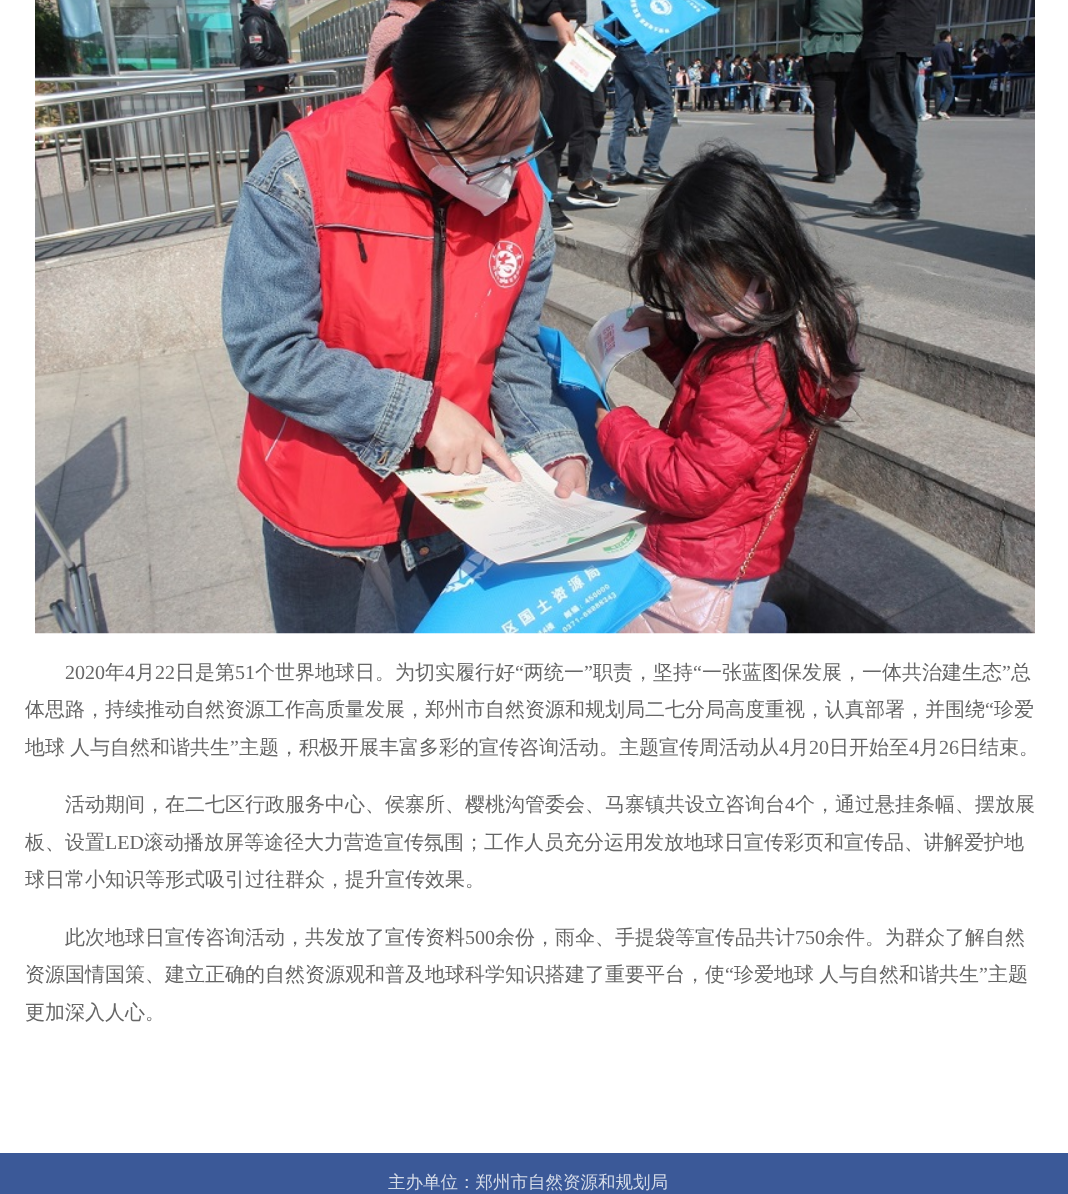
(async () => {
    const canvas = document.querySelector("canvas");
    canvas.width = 1068;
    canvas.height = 1194;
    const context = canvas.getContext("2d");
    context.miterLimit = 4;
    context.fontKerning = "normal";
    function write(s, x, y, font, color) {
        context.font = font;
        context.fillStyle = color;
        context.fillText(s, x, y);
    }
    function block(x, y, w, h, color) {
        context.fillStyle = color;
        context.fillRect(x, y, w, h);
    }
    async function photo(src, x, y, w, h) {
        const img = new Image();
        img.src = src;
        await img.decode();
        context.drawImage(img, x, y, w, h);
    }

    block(0, 0, 1068, 1194, "rgb(255, 255, 255)");
    await photo("media/1.png", 35, 0, 1000, 634);
    write("2020", 65, 679, "20px Liberation Serif", "rgb(102, 102, 102)");
    write("年", 105, 679, "500 20px WenQuanYi Zen Hei", "rgb(102, 102, 102)");
    write("4", 125, 679, "20px Liberation Serif", "rgb(102, 102, 102)");
    write("月", 135, 679, "500 20px WenQuanYi Zen Hei", "rgb(102, 102, 102)");
    write("22", 155, 679, "20px Liberation Serif", "rgb(102, 102, 102)");
    write("日是第", 175, 679, "500 20px WenQuanYi Zen Hei", "rgb(102, 102, 102)");
    write("51", 235, 679, "20px Liberation Serif", "rgb(102, 102, 102)");
    write("个世界地球日。为切实履行好", 255, 679, "500 20px WenQuanYi Zen Hei", "rgb(102, 102, 102)");
    write("“", 515, 679, "20px Liberation Serif", "rgb(102, 102, 102)");
    write("两统一", 524, 679, "500 20px WenQuanYi Zen Hei", "rgb(102, 102, 102)");
    write("”", 584, 679, "20px Liberation Serif", "rgb(102, 102, 102)");
    write("职责，坚持", 593, 679, "500 20px WenQuanYi Zen Hei", "rgb(102, 102, 102)");
    write("“", 693, 679, "20px Liberation Serif", "rgb(102, 102, 102)");
    write("一张蓝图保发展，一体共治建生态", 702, 679, "500 20px WenQuanYi Zen Hei", "rgb(102, 102, 102)");
    write("”", 1002, 679, "20px Liberation Serif", "rgb(102, 102, 102)");
    write("总", 1011, 679, "500 20px WenQuanYi Zen Hei", "rgb(102, 102, 102)");
    write("体思路，持续推动自然资源工作高质量发展，郑州市自然资源和规划局二七分局高度重视，认真部署，并围绕", 25, 716, "500 20px WenQuanYi Zen Hei", "rgb(102, 102, 102)");
    write("“", 985, 716, "20px Liberation Serif", "rgb(102, 102, 102)");
    write("珍爱", 994, 716, "500 20px WenQuanYi Zen Hei", "rgb(102, 102, 102)");
    context.wordSpacing = "-1px";
    write("地球 人与自然和谐共生", 25, 754, "500 20px WenQuanYi Zen Hei", "rgb(102, 102, 102)");
    context.wordSpacing = "0px";
    write("”", 230, 754, "20px Liberation Serif", "rgb(102, 102, 102)");
    write("主题，积极开展丰富多彩的宣传咨询活动。主题宣传周活动从", 239, 754, "500 20px WenQuanYi Zen Hei", "rgb(102, 102, 102)");
    write("4", 779, 754, "20px Liberation Serif", "rgb(102, 102, 102)");
    write("月", 789, 754, "500 20px WenQuanYi Zen Hei", "rgb(102, 102, 102)");
    write("20", 809, 754, "20px Liberation Serif", "rgb(102, 102, 102)");
    write("日开始至", 829, 754, "500 20px WenQuanYi Zen Hei", "rgb(102, 102, 102)");
    write("4", 909, 754, "20px Liberation Serif", "rgb(102, 102, 102)");
    write("月", 919, 754, "500 20px WenQuanYi Zen Hei", "rgb(102, 102, 102)");
    write("26", 939, 754, "20px Liberation Serif", "rgb(102, 102, 102)");
    write("日结束。", 959, 754, "500 20px WenQuanYi Zen Hei", "rgb(102, 102, 102)");
    write("活动期间，在二七区行政服务中心、侯寨所、樱桃沟管委会、马寨镇共设立咨询台", 65, 811, "500 20px WenQuanYi Zen Hei", "rgb(102, 102, 102)");
    write("4", 785, 811, "20px Liberation Serif", "rgb(102, 102, 102)");
    write("个，通过悬挂条幅、摆放展", 795, 811, "500 20px WenQuanYi Zen Hei", "rgb(102, 102, 102)");
    write("板、设置", 25, 849, "500 20px WenQuanYi Zen Hei", "rgb(102, 102, 102)");
    write("LED", 105, 849, "20px Liberation Serif", "rgb(102, 102, 102)");
    write("滚动播放屏等途径大力营造宣传氛围；工作人员充分运用发放地球日宣传彩页和宣传品、讲解爱护地", 144, 849, "500 20px WenQuanYi Zen Hei", "rgb(102, 102, 102)");
    write("球日常小知识等形式吸引过往群众，提升宣传效果。", 25, 886, "500 20px WenQuanYi Zen Hei", "rgb(102, 102, 102)");
    write("此次地球日宣传咨询活动，共发放了宣传资料", 65, 944, "500 20px WenQuanYi Zen Hei", "rgb(102, 102, 102)");
    write("500", 465, 944, "20px Liberation Serif", "rgb(102, 102, 102)");
    write("余份，雨伞、手提袋等宣传品共计", 495, 944, "500 20px WenQuanYi Zen Hei", "rgb(102, 102, 102)");
    write("750", 795, 944, "20px Liberation Serif", "rgb(102, 102, 102)");
    write("余件。为群众了解自然", 825, 944, "500 20px WenQuanYi Zen Hei", "rgb(102, 102, 102)");
    write("资源国情国策、建立正确的自然资源观和普及地球科学知识搭建了重要平台，使", 25, 981, "500 20px WenQuanYi Zen Hei", "rgb(102, 102, 102)");
    write("“", 725, 981, "20px Liberation Serif", "rgb(102, 102, 102)");
    context.wordSpacing = "-1px";
    write("珍爱地球 人与自然和谐共生", 734, 981, "500 20px WenQuanYi Zen Hei", "rgb(102, 102, 102)");
    context.wordSpacing = "0px";
    write("”", 979, 981, "20px Liberation Serif", "rgb(102, 102, 102)");
    write("主题", 988, 981, "500 20px WenQuanYi Zen Hei", "rgb(102, 102, 102)");
    write("更加深入人心。", 25, 1019, "500 20px WenQuanYi Zen Hei", "rgb(102, 102, 102)");
    block(0, 1153, 1068, 41, "rgb(59, 89, 152)");
    write("主办单位：郑州市自然资源和规划局", 388, 1188, "500 17.5px WenQuanYi Zen Hei", "rgb(212, 219, 232)");
})();
